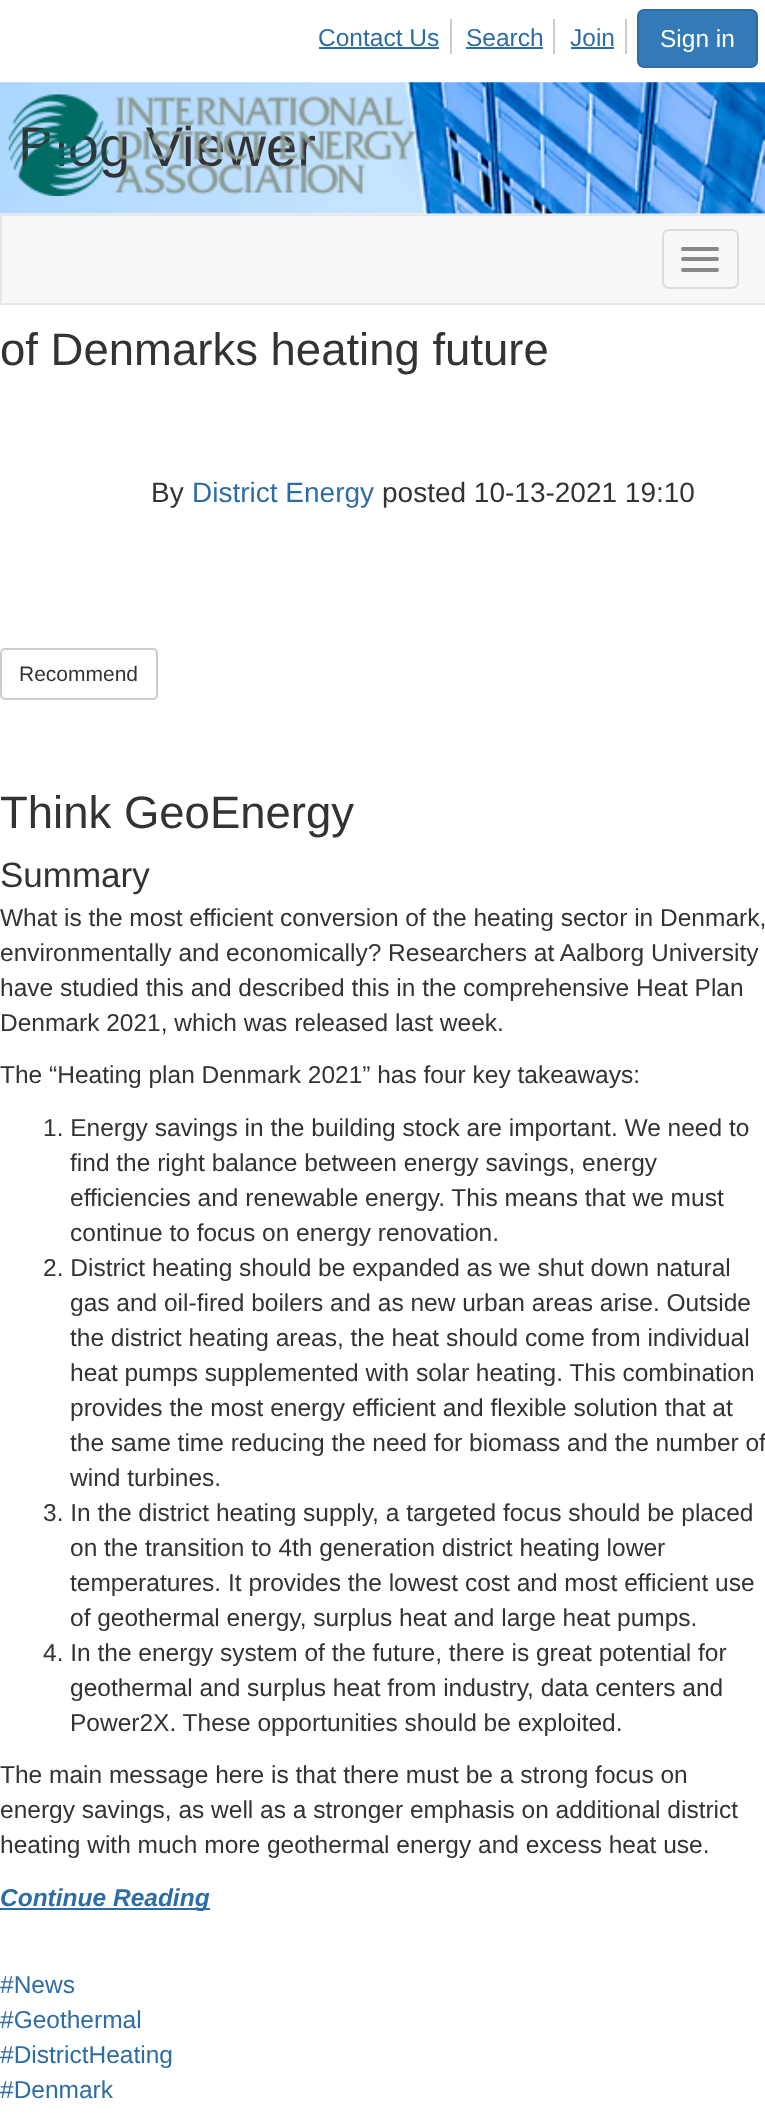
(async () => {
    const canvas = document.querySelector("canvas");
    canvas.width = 765;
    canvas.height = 2116;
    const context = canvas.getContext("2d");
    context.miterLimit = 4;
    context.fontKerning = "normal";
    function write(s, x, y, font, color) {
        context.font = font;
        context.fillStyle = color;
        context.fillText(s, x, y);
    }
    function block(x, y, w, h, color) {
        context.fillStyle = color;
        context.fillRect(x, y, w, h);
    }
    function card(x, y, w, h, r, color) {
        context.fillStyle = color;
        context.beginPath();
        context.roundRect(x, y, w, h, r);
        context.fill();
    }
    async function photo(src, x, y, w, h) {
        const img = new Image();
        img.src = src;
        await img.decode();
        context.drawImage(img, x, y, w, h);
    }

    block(0, 0, 765, 2116, "rgb(255, 255, 255)");
    block(450, 19, 2, 35, "rgb(204, 204, 204)");
    write("Contact Us", 318, 46, "24.5px Liberation Sans", "rgb(46, 109, 164)");
    block(319, 47, 120, 2, "rgb(46, 109, 164)");
    block(553, 19, 2, 35, "rgb(204, 204, 204)");
    write("Search", 466, 46, "24.5px Liberation Sans", "rgb(46, 109, 164)");
    block(466, 47, 77, 2, "rgb(46, 109, 164)");
    block(625, 19, 2, 35, "rgb(204, 204, 204)");
    write("Join", 570, 46, "24.5px Liberation Sans", "rgb(46, 109, 164)");
    block(571, 47, 43, 2, "rgb(46, 109, 164)");
    context.fillStyle = "rgb(51, 122, 183)";
    context.beginPath();
    context.roundRect(638, 10, 119, 57, 6);
    context.fill();
    context.strokeStyle = "rgb(46, 109, 164)";
    context.lineWidth = 2;
    context.stroke();
    write("Sign in", 660, 47, "24.5px Liberation Sans", "rgb(255, 255, 255)");
    await photo("media/2.png", 0, 82, 765, 132);
    write("Blog Viewer", 18, 166, "56px Liberation Sans", "rgb(51, 51, 51)");
    await photo("media/1.png", 8, 94, 407, 102);
    context.fillStyle = "rgb(248, 248, 248)";
    context.beginPath();
    context.rect(1, 215, 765, 89);
    context.fill();
    context.strokeStyle = "rgb(231, 231, 231)";
    context.stroke();
    context.beginPath();
    context.roundRect(663, 230, 75, 58, 6);
    context.strokeStyle = "rgb(221, 221, 221)";
    context.stroke();
    card(681, 247, 38, 4, 2, "rgb(136, 136, 136)");
    card(681, 257, 38, 4, 2, "rgb(136, 136, 136)");
    card(681, 268, 38, 4, 2, "rgb(136, 136, 136)");
    write("of Denmarks heating future", 0, 365, "45.5px Liberation Sans", "rgb(51, 51, 51)");
    write("By", 151, 502, "28px Liberation Sans", "rgb(51, 51, 51)");
    write("District Energy", 192, 502, "28px Liberation Sans", "rgb(46, 109, 164)");
    write("posted 10-13-2021 19:10", 382, 502, "28px Liberation Sans", "rgb(51, 51, 51)");
    context.beginPath();
    context.roundRect(1, 649, 156, 50, 4);
    context.strokeStyle = "rgb(204, 204, 204)";
    context.stroke();
    write("Recommend", 19, 681, "21px Liberation Sans", "rgb(51, 51, 51)");
    write("Think GeoEnergy", 0, 828, "45.5px Liberation Sans", "rgb(51, 51, 51)");
    write("Summary", 0, 887, "35px Liberation Sans", "rgb(51, 51, 51)");
    write("What is the most efficient conversion of the heating sector in Denmark,", 0, 926, "24.5px Liberation Sans", "rgb(51, 51, 51)");
    write("environmentally and economically? Researchers at Aalborg University", 0, 961, "24.5px Liberation Sans", "rgb(51, 51, 51)");
    write("have studied this and described this in the comprehensive Heat Plan", 0, 996, "24.5px Liberation Sans", "rgb(51, 51, 51)");
    write("Denmark 2021, which was released last week.", 0, 1031, "24.5px Liberation Sans", "rgb(51, 51, 51)");
    write("The “Heating plan Denmark 2021” has four key takeaways:", 0, 1083, "24.5px Liberation Sans", "rgb(51, 51, 51)");
    write("1. Energy savings in the building stock are important. We need to", 43, 1136, "24.5px Liberation Sans", "rgb(51, 51, 51)");
    write("find the right balance between energy savings, energy", 70, 1171, "24.5px Liberation Sans", "rgb(51, 51, 51)");
    write("efficiencies and renewable energy. This means that we must", 70, 1206, "24.5px Liberation Sans", "rgb(51, 51, 51)");
    write("continue to focus on energy renovation.", 70, 1241, "24.5px Liberation Sans", "rgb(51, 51, 51)");
    write("2. District heating should be expanded as we shut down natural", 43, 1276, "24.5px Liberation Sans", "rgb(51, 51, 51)");
    write("gas and oil-fired boilers and as new urban areas arise. Outside", 70, 1311, "24.5px Liberation Sans", "rgb(51, 51, 51)");
    write("the district heating areas, the heat should come from individual", 70, 1346, "24.5px Liberation Sans", "rgb(51, 51, 51)");
    write("heat pumps supplemented with solar heating. This combination", 70, 1381, "24.5px Liberation Sans", "rgb(51, 51, 51)");
    write("provides the most energy efficient and flexible solution that at", 70, 1416, "24.5px Liberation Sans", "rgb(51, 51, 51)");
    write("the same time reducing the need for biomass and the number of", 70, 1451, "24.5px Liberation Sans", "rgb(51, 51, 51)");
    write("wind turbines.", 70, 1486, "24.5px Liberation Sans", "rgb(51, 51, 51)");
    write("3. In the district heating supply, a targeted focus should be placed", 43, 1521, "24.5px Liberation Sans", "rgb(51, 51, 51)");
    write("on the transition to 4th generation district heating lower", 70, 1556, "24.5px Liberation Sans", "rgb(51, 51, 51)");
    write("temperatures. It provides the lowest cost and most efficient use", 70, 1591, "24.5px Liberation Sans", "rgb(51, 51, 51)");
    write("of geothermal energy, surplus heat and large heat pumps.", 70, 1626, "24.5px Liberation Sans", "rgb(51, 51, 51)");
    write("4. In the energy system of the future, there is great potential for", 43, 1661, "24.5px Liberation Sans", "rgb(51, 51, 51)");
    write("geothermal and surplus heat from industry, data centers and", 70, 1696, "24.5px Liberation Sans", "rgb(51, 51, 51)");
    write("Power2X. These opportunities should be exploited.", 70, 1731, "24.5px Liberation Sans", "rgb(51, 51, 51)");
    write("The main message here is that there must be a strong focus on", 0, 1783, "24.5px Liberation Sans", "rgb(51, 51, 51)");
    write("energy savings, as well as a stronger emphasis on additional district", 0, 1818, "24.5px Liberation Sans", "rgb(51, 51, 51)");
    write("heating with much more geothermal energy and excess heat use.", 0, 1853, "24.5px Liberation Sans", "rgb(51, 51, 51)");
    block(0, 1908, 210, 2, "rgb(46, 109, 164)");
    write("Continue Reading", 0, 1906, "italic bold 24.5px Liberation Sans", "rgb(46, 109, 164)");
    write("#News", 0, 1993, "24.5px Liberation Sans", "rgb(46, 109, 164)");
    write("#Geothermal", 0, 2028, "24.5px Liberation Sans", "rgb(46, 109, 164)");
    write("#DistrictHeating", 0, 2063, "24.5px Liberation Sans", "rgb(46, 109, 164)");
    write("#Denmark", 0, 2098, "24.5px Liberation Sans", "rgb(46, 109, 164)");
})();
